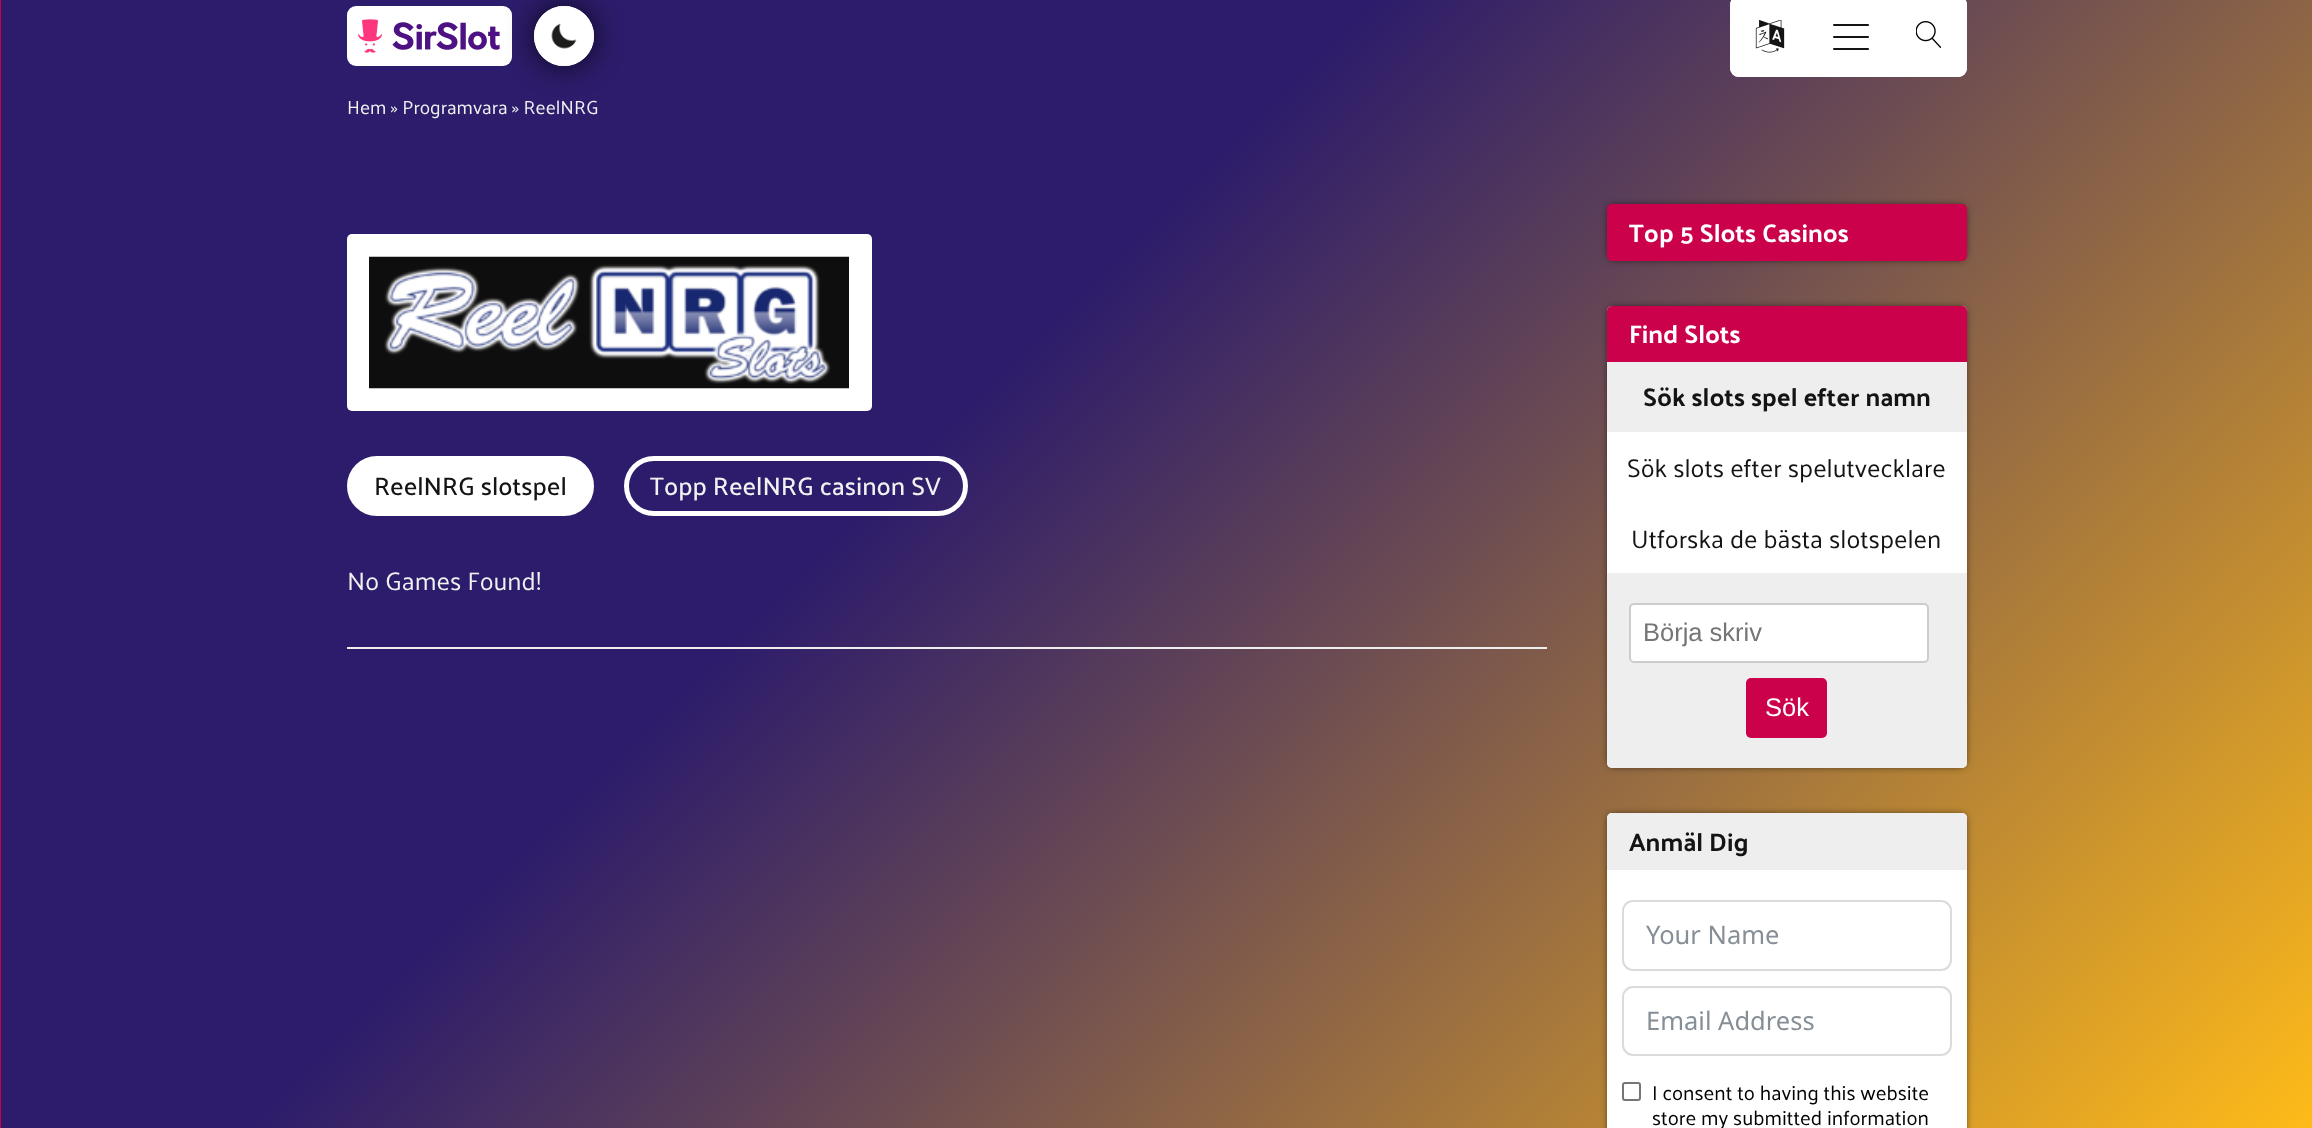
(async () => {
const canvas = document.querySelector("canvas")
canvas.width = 2312
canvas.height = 1128
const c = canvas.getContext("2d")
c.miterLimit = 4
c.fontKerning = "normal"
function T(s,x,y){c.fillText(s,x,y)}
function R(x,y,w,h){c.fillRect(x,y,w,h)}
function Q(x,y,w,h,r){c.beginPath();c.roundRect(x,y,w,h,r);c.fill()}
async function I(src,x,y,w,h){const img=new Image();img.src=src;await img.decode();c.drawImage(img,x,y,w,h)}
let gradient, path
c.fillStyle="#fff"
R(0,0,2312,1128)
gradient = c.createLinearGradient(296,-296,2017,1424)
gradient.addColorStop(.4,"#2d1c6b")
gradient.addColorStop(1,"#ffbb19")
c.fillStyle = gradient
R(1,0,2311,1128)
c.fillStyle="#fff"
Q(1730,-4,237,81,9)
c.fillStyle="#cb024b"
R(0,0,1,1128)
c.fillStyle="#fff"
path = new Path2D("M1739-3h71v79h-71c-4.5 0-8-3.5-8-8v-63c0-4.5 3.5-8 8-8z")
c.fill(path)
c.strokeStyle="#fff"
c.lineWidth=2
c.stroke(path)
await I("1.png",1755,20,30,33)
c.fillStyle="#141414"
Q(1833,36,36,2,1)
Q(1833,24,36,2,1)
Q(1833,48,36,2,1)
c.fillStyle="#fff"
path = new Path2D("M1892-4h66c5 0 9 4 9 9v63c0 5-4 9-9 9h-66z")
c.fill(path)
await I("2.png",1916,21,26,27)
Q(347,6,165,60,9)
await I("3.png",358,19,142,34)
c.fillStyle="#000"
c.filter="blur(15px)"
c.beginPath()
c.roundRect(537,9,54,54,27)
c.fill()
c.filter="none"
c.fillStyle="#fff"
c.beginPath()
c.arc(564,36,30,0,7)
c.fill()
await I("4.png",551,23,26,26)
c.beginPath()
c.arc(564,36,29,0,7)
c.stroke()
c.font="19.1px Palanquin"
c.fillStyle="#f1f1f1"
T("Hem » Programvara » ReelNRG",347,114)
c.fillStyle="#eee"
R(347,647,1200,2)
c.fillStyle="#fff"
Q(347,234,525,177,5)
await I("5.png",369,256,480,133)
c.beginPath()
c.roundRect(349.5,458.5,242,55,27.5)
c.fill()
c.lineWidth=5
c.stroke()
c.font="500 25.5px Palanquin"
c.fillStyle="#141414"
T("ReelNRG slotspel",374,495)
c.beginPath()
c.roundRect(626.5,458.5,339,55,27.5)
c.stroke()
c.fillStyle="#f1f1f1"
T("Topp ReelNRG casinon SV",650,495)
c.font="25.5px Palanquin"
T("No Games Found!",347,590)
c.fillStyle="#010101"
c.filter="blur(4px)"
c.beginPath()
c.roundRect(1610,207,354,51,1.5)
c.fill()
c.filter="none"
c.fillStyle="#cb024b"
Q(1607,204,360,57,5)
c.font="bold 25.5px Palanquin"
c.fillStyle="#fff"
T("Top 5 Slots Casinos",1629,242)
c.fillStyle="#010101"
c.filter="blur(4px)"
c.beginPath()
c.roundRect(1610,309,354,456,1.5)
c.fill()
c.filter="none"
c.fillStyle="#fff"
Q(1607,306,360,462,5)
c.fillStyle="#cb024b"
c.beginPath()
c.roundRect(1607,306,360,56,[5,5,0,0])
c.fill()
c.fillStyle="#fff"
T("Find Slots",1629,343)
c.fillStyle="#eee"
R(1607,362,360,70)
c.fillStyle="#141414"
T("Sök slots spel efter namn",1643,406)
c.font="25.5px Palanquin"
T("Sök slots efter spelutvecklare",1627,477)
T("Utforska de bästa slotspelen",1631,548)
c.fillStyle="#eee"
c.beginPath()
c.roundRect(1607,573,360,195,[0,0,5,5])
c.fill()
c.fillStyle="#fff"
c.beginPath()
c.roundRect(1630,604,298,58,4)
c.fill()
c.strokeStyle="#ccc"
c.lineWidth=2
c.stroke()
c.font="25.5px Liberation Sans"
c.fillStyle="#757575"
T("Börja skriv",1643,641)
c.fillStyle="#cb024b"
Q(1746,678,81,60,5)
c.fillStyle="#fff"
T("Sök",1765,716)
c.fillStyle="#010101"
c.filter="blur(4px)"
c.beginPath()
c.roundRect(1610,816,354,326,1.5)
c.fill()
c.filter="none"
c.fillStyle="#fff"
Q(1607,813,360,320,5)
c.fillStyle="#eee"
c.beginPath()
c.roundRect(1607,813,360,57,[5,5,0,0])
c.fill()
c.font="bold 25.5px Palanquin"
c.fillStyle="#141414"
T("Anmäl Dig",1629,851)
c.beginPath()
c.roundRect(1623,901,328,69,10)
c.strokeStyle="#dadbdd"
c.stroke()
c.font="25.5px Noto Sans"
c.fillStyle="#868e96"
T("Your Name",1646,944)
c.beginPath()
c.roundRect(1623,987,328,68,10)
c.stroke()
T("Email Address",1646,1030)
c.beginPath()
c.roundRect(1623,1083,17,17,2)
c.strokeStyle="#767676"
c.stroke()
c.font="20.4px Palanquin"
c.fillStyle="#010101"
T("I consent to having this website",1652,1100)
T("store my submitted information",1652,1125)
})()
